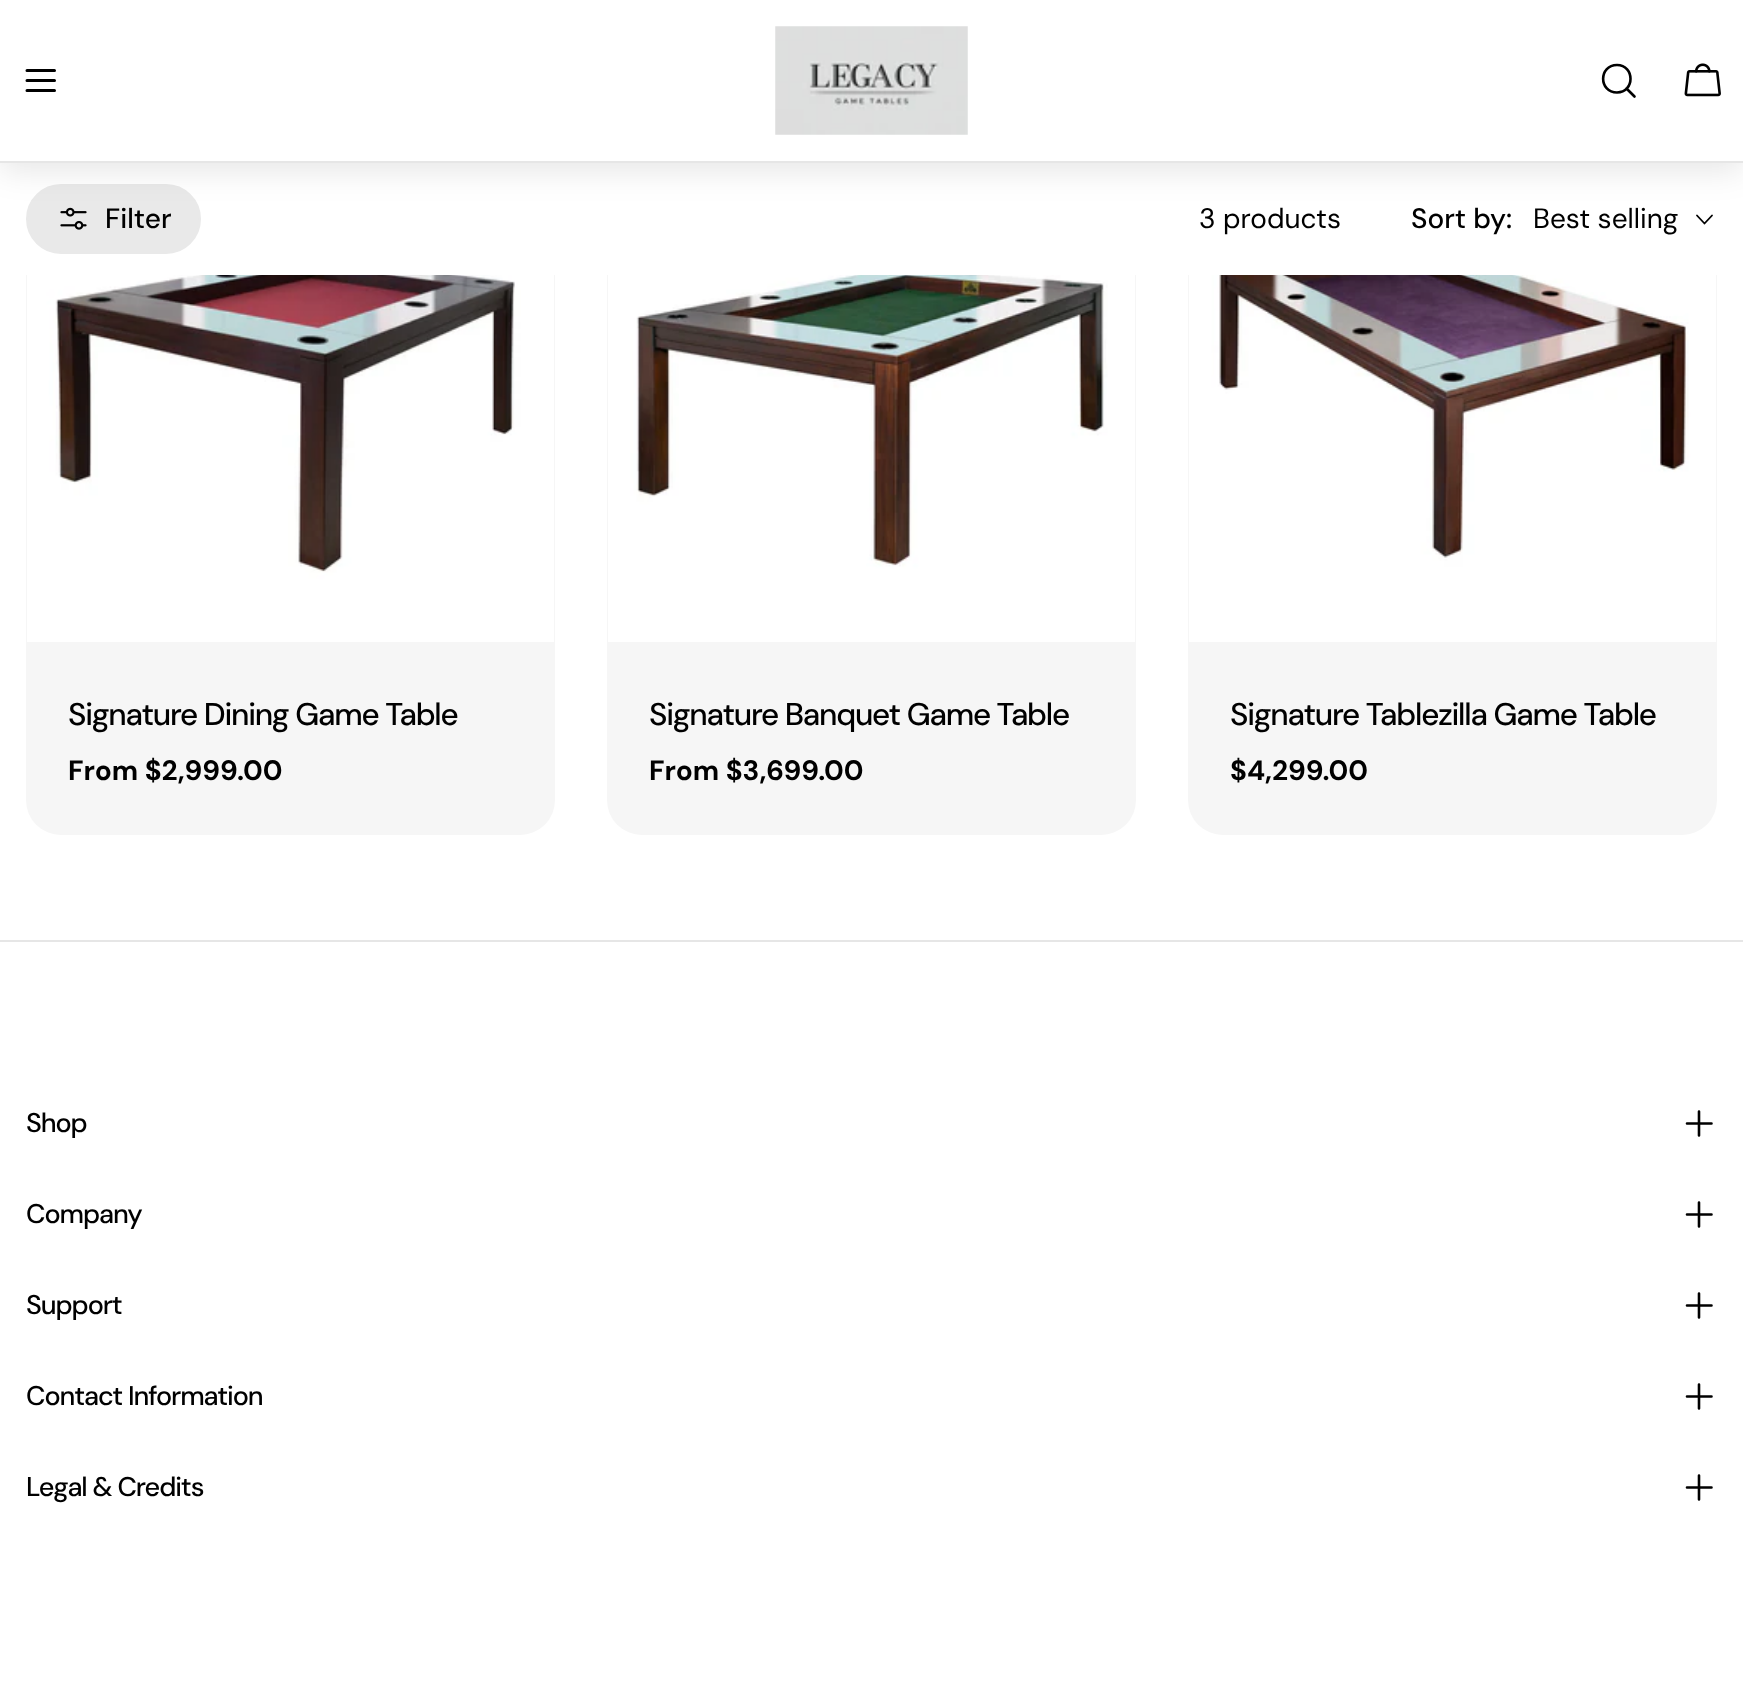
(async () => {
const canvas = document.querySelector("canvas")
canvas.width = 1743
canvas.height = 1690
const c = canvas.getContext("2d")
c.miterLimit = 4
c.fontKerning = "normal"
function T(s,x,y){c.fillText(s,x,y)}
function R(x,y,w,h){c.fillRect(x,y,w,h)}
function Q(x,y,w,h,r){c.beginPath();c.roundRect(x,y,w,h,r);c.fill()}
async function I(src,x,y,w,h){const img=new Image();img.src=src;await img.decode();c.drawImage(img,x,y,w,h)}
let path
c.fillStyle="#fff"
R(0,0,1743,1690)
c.fillStyle="#f6f6f6"
Q(26,114,529,721,35)
Q(607,114,529,721,35)
Q(1188,114,529,721,35)
c.fillStyle="#fff"
R(26,163,1691,112)
c.fillStyle="#e9e9e9"
c.beginPath()
c.roundRect(27,185,173,68,34)
c.fill()
c.strokeStyle="#e9e9e9"
c.lineWidth=2
c.stroke()
await I("3.png",60,207,27,23)
path = new Path2D("M1712 215.5l-7.5 8l-7.5-8")
c.strokeStyle="#000"
c.lineWidth=1.8
c.lineCap="round"
c.lineJoin="round"
c.stroke(path)
c.fillStyle="#0000001a"
c.filter="blur(16px)"
c.beginPath()
c.rect(0,7,1743,163)
c.fill()
c.filter="none"
c.fillStyle="#e6e6e6"
R(0,161,1743,2)
c.fillStyle="#fff"
R(0,0,1743,161)
path = new Path2D("M27 80.5h27.5m-27.5-10h27.5m-27.5 20h27.5")
c.lineWidth=3
c.stroke(path)
await I("1.png",775,26,193,109)
path = new Path2D("M1617 92.5c18 0 18-27.5 0-27.5c-18.5 0-18.5 27.5 0 27.5zm9.5-4l8 8")
c.lineWidth=2.6
c.stroke(path)
await I("2.png",1684,63,37,34)
c.font="500 28px 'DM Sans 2'"
c.fillStyle="#000"
T("Filter",105,228)
c.font="28px DM Sans"
T("3 products",1199,228)
c.font="500 28px 'DM Sans 2'"
T("Sort by:",1411,228)
c.font="28px DM Sans"
T("Best selling",1533,228)
await I("4.png",27,275,527,367)
c.letterSpacing="-1.25px"
c.font="500 31.4px DM Sans"
T("Signature Dining Game Table",68,725)
c.letterSpacing="0px"
c.font="bold 28px DM Sans"
T("From $2,999.00",68,780)
await I("5.png",608,275,527,367)
c.letterSpacing="-1.25px"
c.font="500 31.4px DM Sans"
T("Signature Banquet Game Table",649,725)
c.letterSpacing="0px"
c.font="bold 28px DM Sans"
T("From $3,699.00",649,780)
await I("6.png",1189,275,527,367)
c.letterSpacing="-1.25px"
c.font="500 31.4px DM Sans"
T("Signature Tablezilla Game Table",1230,725)
c.letterSpacing="0px"
c.font="bold 28px DM Sans"
T("$4,299.00",1230,780)
c.fillStyle="#e6e6e6"
R(0,940,1743,2)
c.letterSpacing="-1.1px"
c.font="500 27px 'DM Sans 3'"
c.fillStyle="#000"
T("Shop",26,1132)
path = new Path2D("M1687 1123.5h24.5m-12.5-12v24")
c.stroke(path)
T("Company",26,1223)
path = new Path2D("M1687 1214.5h24.5m-12.5-12v24")
c.stroke(path)
T("Support",26,1314)
path = new Path2D("M1687 1305.5h24.5m-12.5-12v24")
c.stroke(path)
T("Contact Information",26,1405)
path = new Path2D("M1687 1396.5h24.5m-12.5-12v24")
c.stroke(path)
T("Legal & Credits",26,1496)
path = new Path2D("M1687 1487.5h24.5m-12.5-12v24")
c.stroke(path)
})()
